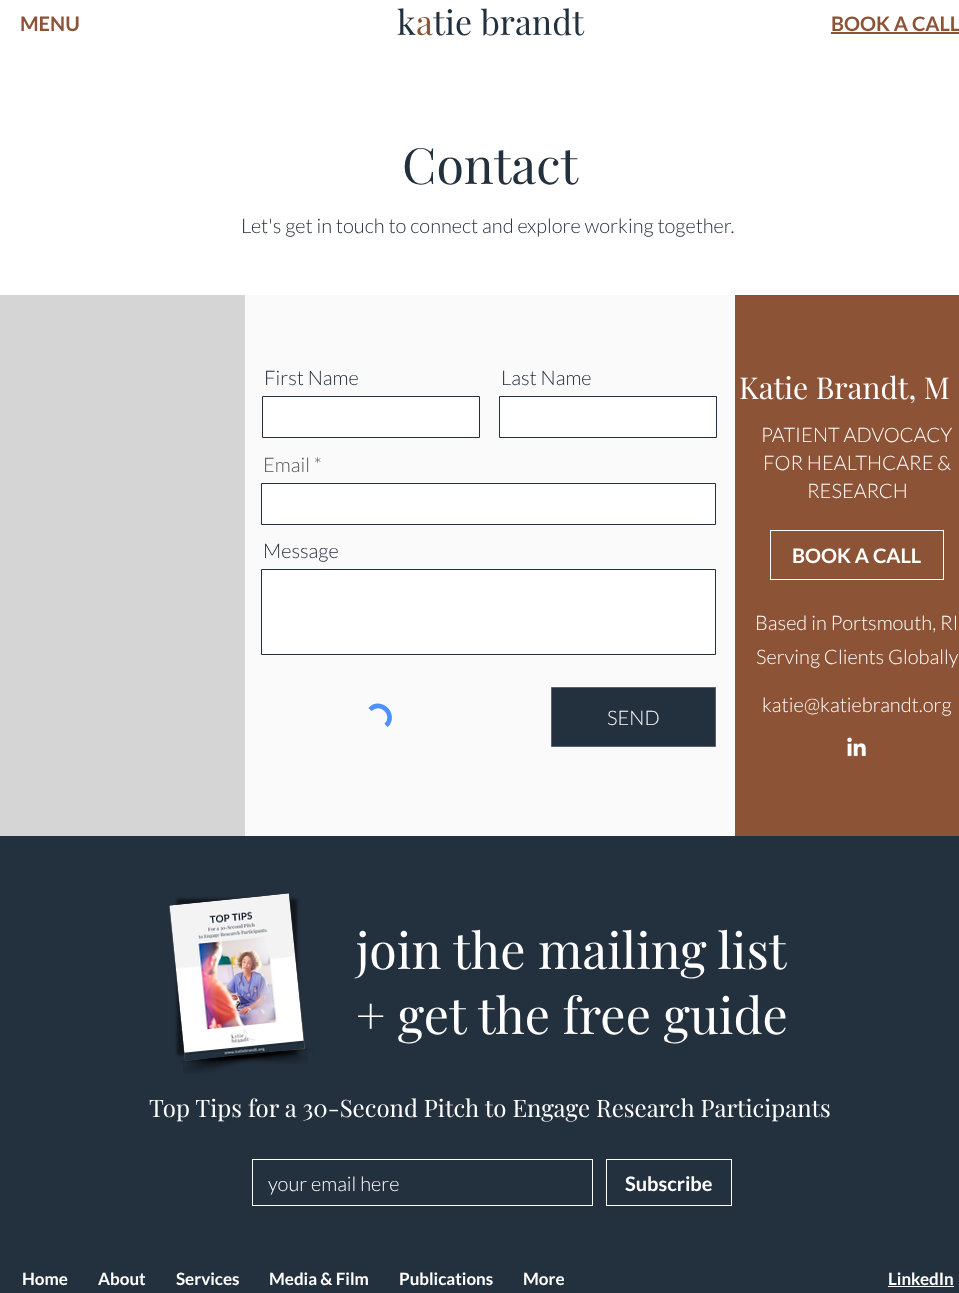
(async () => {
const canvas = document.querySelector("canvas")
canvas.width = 959
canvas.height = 1293
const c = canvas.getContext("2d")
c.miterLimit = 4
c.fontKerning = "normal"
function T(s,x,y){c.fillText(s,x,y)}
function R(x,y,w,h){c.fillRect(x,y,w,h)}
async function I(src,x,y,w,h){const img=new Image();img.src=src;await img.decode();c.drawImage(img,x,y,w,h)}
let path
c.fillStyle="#fff"
R(0,0,959,1293)
c.font="bold 20px Lato"
c.fillStyle="#8d5336"
T("MENU",20,31)
c.font="34px Playfair Display"
c.fillStyle="#23303d"
T("k",397,35)
c.fillStyle="#8d5336"
T("a",416,35)
c.fillStyle="#23303d"
T("tie brandt",433,35)
c.font="bold 20px Lato"
c.fillStyle="#8d5336"
T("BOOK A CALL",831,31)
R(831,32,128,2)
c.font="50px Playfair Display"
c.fillStyle="#23303d"
T("Contact",402,184)
c.font="300 20px Lato"
T("Let's get in touch to connect and explore working together.",241,233)
c.fillStyle="#d5d5d5"
R(0,295,245,541)
c.fillStyle="#fafafa"
R(245,295,490,541)
c.fillStyle="#23303d"
T("First Name",264,385)
c.fillStyle="#fff"
c.beginPath()
c.rect(262.5,396.5,217,41)
c.fill()
c.strokeStyle="#23303d"
c.stroke()
c.fillStyle="#23303d"
T("Last Name",501,385)
c.fillStyle="#fff"
c.beginPath()
c.rect(499.5,396.5,217,41)
c.fill()
c.stroke()
c.fillStyle="#555"
T("Email *",263,472)
c.fillStyle="#fff"
c.beginPath()
c.rect(261.5,483.5,454,41)
c.fill()
c.stroke()
c.fillStyle="#23303d"
T("Message",263,558)
c.fillStyle="#fff"
c.beginPath()
c.rect(261.5,569.5,454,85)
c.fill()
c.stroke()
path = new Path2D("M370 709.5c10.5-11 27 5.5 16 16")
c.strokeStyle="#4d90fe"
c.lineWidth=4.6
c.stroke(path)
c.fillStyle="#23303d"
c.beginPath()
c.rect(551.5,687.5,164,59)
c.fill()
c.strokeStyle="#56626e"
c.lineWidth=1
c.stroke()
c.fillStyle="#fff"
T("SEND",607,725)
c.fillStyle="#8d5336"
R(735,295,224,541)
c.font="30px Playfair Display"
c.fillStyle="#fff"
T("Katie Brandt, M",739,399)
c.font="300 20px Lato"
T("PATIENT ADVOCACY",761,442)
T("FOR HEALTHCARE &",763,470)
T("RESEARCH",807,498)
c.strokeStyle="#fff"
c.strokeRect(770.5,530.5,173,49)
c.font="bold 20px Lato"
T("BOOK A CALL",792,563)
c.font="300 20px Lato"
T("Based in Portsmouth, RI",755,630)
T("Serving Clients Globally",756,664)
T("katie@katiebrandt.org",762,712)
await I("1.png",847,737,19,20)
c.fillStyle="#23303d"
R(0,836,959,457)
c.fillStyle="#00000080"
c.filter="blur(1.5px)"
c.beginPath()
c.rect(177,899,120,156)
c.fill()
c.filter="none"
c.fillStyle="#555"
path = new Path2D("M169 906l120-12l16 155l-120 12z")
c.fill(path)
await I("2.png",169,893,136,168)
await I("3.png",183,1048,130,26)
await I("4.png",180,1049,128,15)
c.font="50px Playfair Display"
c.fillStyle="#fff"
T("join the mailing list",356,969)
T("+ get the free guide",356,1034)
c.font="24px Playfair Display"
T("Top Tips for a 30-Second Pitch to Engage Research Participants",149,1117)
c.strokeRect(252.5,1159.5,340,46)
c.font="300 20px Lato"
T("your email here",268,1191)
c.strokeRect(606.5,1159.5,125,46)
c.font="bold 20px Lato"
T("Subscribe",625,1191)
c.font="bold 17px Lato"
T("Home",22,1285)
T("About",98,1285)
T("Services",176,1285)
T("Media & Film",269,1285)
T("Publications",399,1285)
T("More",523,1285)
T("LinkedIn",888,1285)
R(888,1286,66,1)
})()
